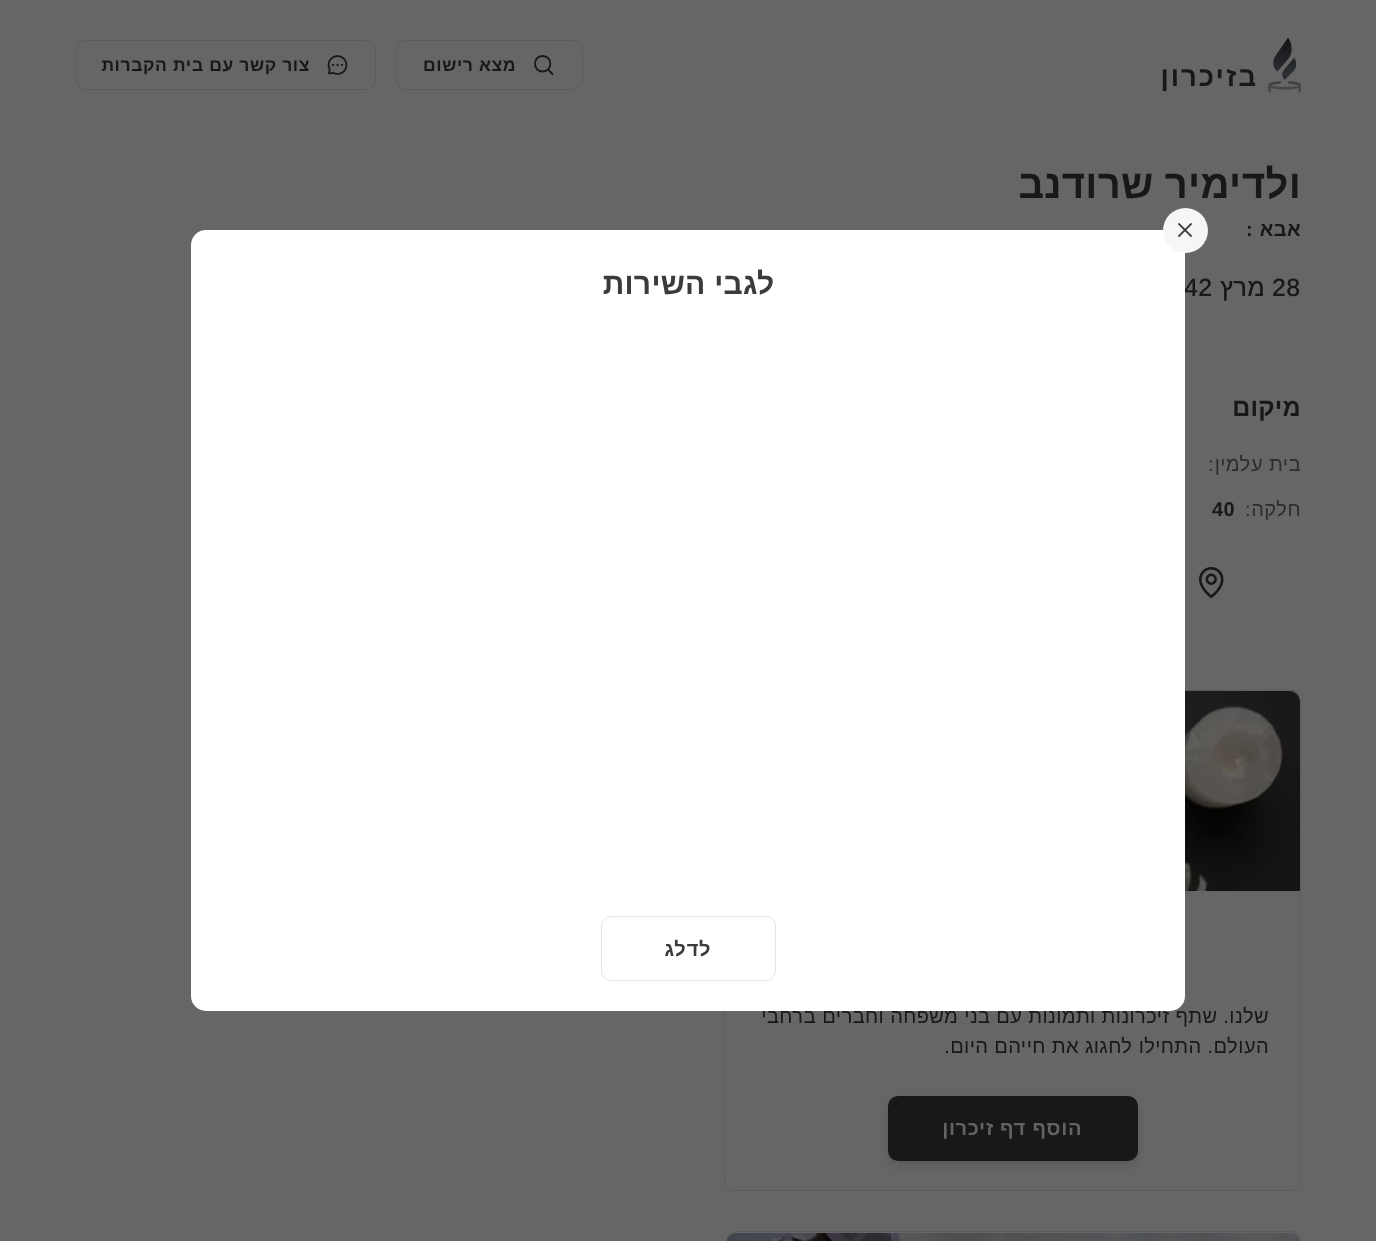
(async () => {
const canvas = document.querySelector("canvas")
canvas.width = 1376
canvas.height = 1241
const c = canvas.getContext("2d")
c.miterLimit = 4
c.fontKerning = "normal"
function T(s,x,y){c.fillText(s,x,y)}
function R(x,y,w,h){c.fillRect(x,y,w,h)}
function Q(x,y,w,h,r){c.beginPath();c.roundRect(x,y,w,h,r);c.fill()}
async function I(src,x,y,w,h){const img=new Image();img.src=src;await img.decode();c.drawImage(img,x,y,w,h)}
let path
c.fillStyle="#666"
R(0,0,1376,1241)
await I("1.png",1268,38,33,55)
c.letterSpacing="2px"
c.direction="rtl"
c.font="bold 27.5px Arimo"
c.fillStyle="#181818"
T("בזיכרון",1258,86)
c.beginPath()
c.roundRect(396.5,40.5,186,49,9.5)
c.strokeStyle="#5c5c5c"
c.stroke()
path = new Path2D("M542.5 71.5c10.5 0 10.5-15.5 0-15.5c-10 0-10 15.5 0 15.5m5.5-2l4.5 4.5")
c.strokeStyle="#181818"
c.lineWidth=1.8
c.lineCap="round"
c.lineJoin="round"
c.stroke(path)
c.letterSpacing="0.6px"
c.font="bold 17.5px Arimo"
T("מצא רישום",516,71)
c.beginPath()
c.roundRect(76.5,40.5,299,49,9.5)
c.strokeStyle="#5c5c5c"
c.lineWidth=1
c.lineJoin="miter"
c.stroke()
await I("2.png",327,55,21,20)
T("צור קשר עם בית הקברות",310,71)
c.letterSpacing="0.25px"
c.font="bold 40px Arimo"
T("ולדימיר שרודנב",1301,198)
c.letterSpacing="0.38px"
c.font="bold 20px Arimo"
T("אבא",1301,236)
c.direction="ltr"
T(":",1246,236)
c.letterSpacing="0.25px"
c.font="500 25px Arimo"
T("28",1272,296)
c.direction="rtl"
T("מרץ",1265,296)
c.direction="ltr"
T("42",1184,296)
c.direction="rtl"
c.font="bold 25px Arimo"
T("מיקום",1301,416)
c.letterSpacing="0.38px"
c.font="20px Arimo"
c.fillStyle="#2d2d2d"
T("בית עלמין",1301,471)
c.direction="ltr"
T(":",1208,471)
c.direction="rtl"
T("חלקה",1301,516)
c.direction="ltr"
T(":",1245,516)
c.font="bold 20px Arimo"
c.fillStyle="#181818"
T("40",1212,516)
await I("3.png",1199,567,25,31)
c.beginPath()
c.roundRect(724.5,690.5,576,500,9.5)
c.stroke()
await I("4.png",1185,691,115,200)
c.direction="rtl"
c.font="20px Arimo"
T("שלנו. שתף זיכרונות ותמונות עם בני משפחה וחברים ברחבי",1269,1023)
T("העולם. התחילו לחגוג את חייהם היום.",1269,1053)
c.fillStyle="#0000001f"
c.filter="blur(5px)"
c.beginPath()
c.roundRect(888,1100,250,65,10)
c.fill()
c.filter="none"
c.fillStyle="#181818"
Q(888,1096,250,65,10)
c.letterSpacing="0.6px"
c.font="bold 20px Arimo"
c.fillStyle="#636363"
T("הוסף דף זיכרון",1082,1135)
c.beginPath()
c.roundRect(726.5,1231.5,574,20,9.5)
c.stroke()
await I("5.png",727,1233,573,8)
c.fillStyle="#fff"
Q(191,230,994,781,15)
c.fillStyle="#f6f6f6"
c.beginPath()
c.arc(1185.5,230.5,22.5,0,7)
c.fill()
await I("6.png",1178,223,15,15)
c.letterSpacing="0.25px"
c.font="bold 30px Arimo"
c.fillStyle="#3b3b3b"
T("לגבי השירות",775,294)
c.beginPath()
c.roundRect(601.5,916.5,174,64,9.5)
c.strokeStyle="#e5e5e5"
c.stroke()
c.letterSpacing="0.6px"
c.font="bold 20px Arimo"
T("לדלג",711,956)
})()
